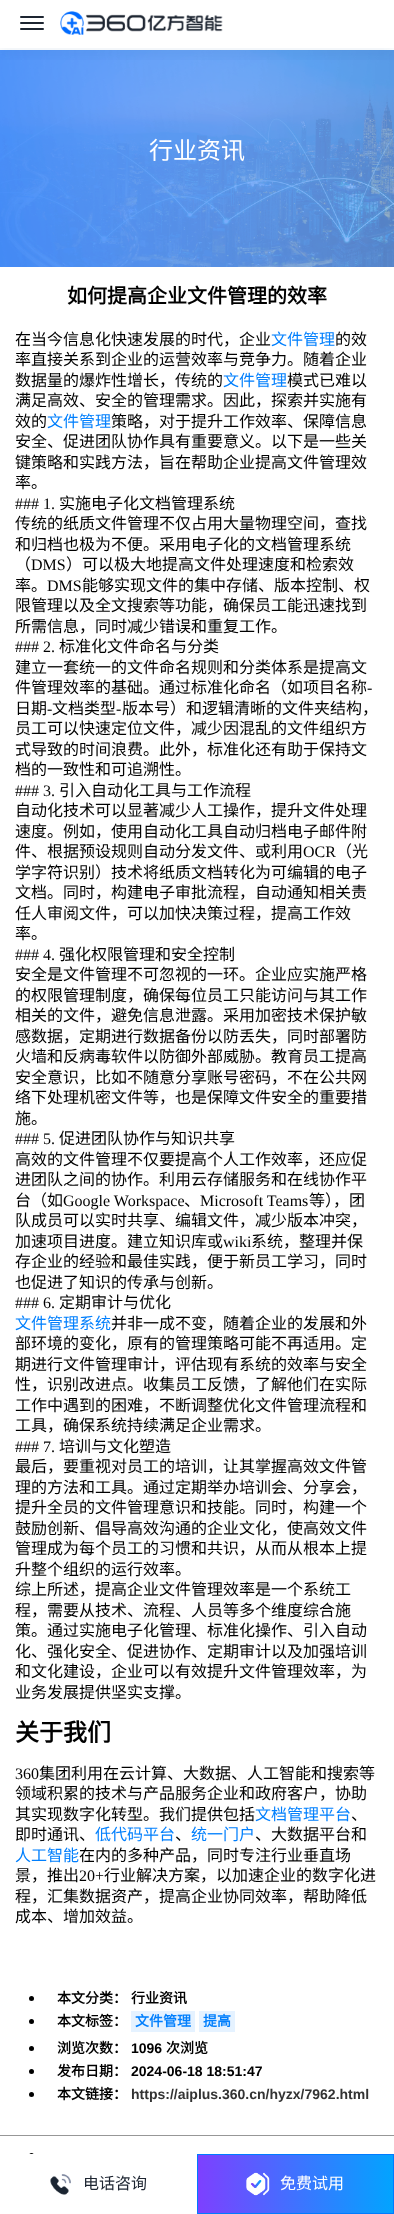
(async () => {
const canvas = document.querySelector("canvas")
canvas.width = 394
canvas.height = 2214
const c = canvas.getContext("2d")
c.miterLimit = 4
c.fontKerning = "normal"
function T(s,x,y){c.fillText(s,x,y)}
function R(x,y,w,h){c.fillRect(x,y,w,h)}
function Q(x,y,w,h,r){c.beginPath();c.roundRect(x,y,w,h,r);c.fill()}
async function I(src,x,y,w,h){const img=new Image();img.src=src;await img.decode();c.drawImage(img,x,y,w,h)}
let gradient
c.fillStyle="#fff"
R(0,0,394,2214)
await I("2.png",0,50,394,217)
c.save()
c.beginPath()
c.rect(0,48,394,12)
c.clip()
c.fillStyle="#0138770d"
c.filter="blur(6px)"
c.beginPath()
c.rect(0,10,394,48)
c.fill()
c.filter="none"
c.restore()
c.fillStyle="#1d2531"
Q(20,16,24,2,1)
Q(20,22,24,2,1)
Q(20,28,24,2,1)
await I("1.png",60,11,163,24)
c.font="24px Noto Sans CJK SC"
c.fillStyle="#fff"
T("行业资讯",149,159)
c.font="bold 20px Noto Sans CJK SC"
c.fillStyle="#000"
T("如何提高企业文件管理的效率",67,303)
c.font="16px Noto Sans CJK SC"
T("在当今信息化快速发展的时代，企业",15,345)
c.fillStyle="#017ffd"
T("文件管理",271,345)
c.fillStyle="#000"
T("的效",335,345)
T("率直接关系到企业的运营效率与竞争力。随着企业",15,365)
T("数据量的爆炸性增长，传统的",15,386)
c.fillStyle="#017ffd"
T("文件管理",223,386)
c.fillStyle="#000"
T("模式已难以",287,386)
T("满足高效、安全的管理需求。因此，探索并实施有",15,406)
T("效的",15,427)
c.fillStyle="#017ffd"
T("文件管理",47,427)
c.fillStyle="#000"
T("策略，对于提升工作效率、保障信息",111,427)
T("安全、促进团队协作具有重要意义。以下是一些关",15,447)
T("键策略和实践方法，旨在帮助企业提高文件管理效",15,468)
T("率。",15,488)
c.font="16px Liberation Serif"
T("### 1.",15,509)
c.font="16px Noto Sans CJK SC"
T("实施电子化文档管理系统",59,509)
T("传统的纸质文件管理不仅占用大量物理空间，查找",15,529)
T("和归档也极为不便。采用电子化的文档管理系统",15,550)
T("（",15,570)
c.font="16px Liberation Serif"
T("DMS",31,570)
c.font="16px Noto Sans CJK SC"
T("）可以极大地提高文件处理速度和检索效",66,570)
T("率。",15,591)
c.font="16px Liberation Serif"
T("DMS",47,591)
c.font="16px Noto Sans CJK SC"
T("能够实现文件的集中存储、版本控制、权",82,591)
T("限管理以及全文搜索等功能，确保员工能迅速找到",15,611)
T("所需信息，同时减少错误和重复工作。",15,632)
c.font="16px Liberation Serif"
T("### 2.",15,652)
c.font="16px Noto Sans CJK SC"
T("标准化文件命名与分类",59,652)
T("建立一套统一的文件命名规则和分类体系是提高文",15,673)
T("件管理效率的基础。通过标准化命名（如项目名称",15,693)
c.font="16px Liberation Serif"
T("-",367,693)
c.font="16px Noto Sans CJK SC"
T("日期",15,714)
c.font="16px Liberation Serif"
T("-",47,714)
c.font="16px Noto Sans CJK SC"
T("文档类型",52,714)
c.font="16px Liberation Serif"
T("-",116,714)
c.font="16px Noto Sans CJK SC"
T("版本号）和逻辑清晰的文件夹结构，",122,714)
T("员工可以快速定位文件，减少因混乱的文件组织方",15,734)
T("式导致的时间浪费。此外，标准化还有助于保持文",15,755)
T("档的一致性和可追溯性。",15,775)
c.font="16px Liberation Serif"
T("### 3.",15,796)
c.font="16px Noto Sans CJK SC"
T("引入自动化工具与工作流程",59,796)
T("自动化技术可以显著减少人工操作，提升文件处理",15,816)
T("速度。例如，使用自动化工具自动归档电子邮件附",15,837)
T("件、根据预设规则自动分发文件、或利用",15,857)
c.font="16px Liberation Serif"
T("OCR",303,857)
c.font="16px Noto Sans CJK SC"
T("（光",336,857)
T("学字符识别）技术将纸质文档转化为可编辑的电子",15,878)
T("文档。同时，构建电子审批流程，自动通知相关责",15,898)
T("任人审阅文件，可以加快决策过程，提高工作效",15,919)
T("率。",15,939)
c.font="16px Liberation Serif"
T("### 4.",15,960)
c.font="16px Noto Sans CJK SC"
T("强化权限管理和安全控制",59,960)
T("安全是文件管理不可忽视的一环。企业应实施严格",15,980)
T("的权限管理制度，确保每位员工只能访问与其工作",15,1001)
T("相关的文件，避免信息泄露。采用加密技术保护敏",15,1021)
T("感数据，定期进行数据备份以防丢失，同时部署防",15,1042)
T("火墙和反病毒软件以防御外部威胁。教育员工提高",15,1062)
T("安全意识，比如不随意分享账号密码，不在公共网",15,1083)
T("络下处理机密文件等，也是保障文件安全的重要措",15,1103)
T("施。",15,1124)
c.font="16px Liberation Serif"
T("### 5.",15,1144)
c.font="16px Noto Sans CJK SC"
T("促进团队协作与知识共享",59,1144)
T("高效的文件管理不仅要提高个人工作效率，还应促",15,1165)
T("进团队之间的协作。利用云存储服务和在线协作平",15,1185)
T("台（如",15,1206)
c.font="16px Liberation Serif"
T("Google Workspace",63,1206)
c.font="16px Noto Sans CJK SC"
T("、",184,1206)
c.font="16px Liberation Serif"
T("Microsoft Teams",200,1206)
c.font="16px Noto Sans CJK SC"
T("等），团",309,1206)
T("队成员可以实时共享、编辑文件，减少版本冲突，",15,1226)
T("加速项目进度。建立知识库或",15,1247)
c.font="16px Liberation Serif"
T("wiki",223,1247)
c.font="16px Noto Sans CJK SC"
T("系统，整理并保",251,1247)
T("存企业的经验和最佳实践，便于新员工学习，同时",15,1267)
T("也促进了知识的传承与创新。",15,1288)
c.font="16px Liberation Serif"
T("### 6.",15,1308)
c.font="16px Noto Sans CJK SC"
T("定期审计与优化",59,1308)
c.fillStyle="#017ffd"
T("文件管理系统",15,1329)
c.fillStyle="#000"
T("并非一成不变，随着企业的发展和外",111,1329)
T("部环境的变化，原有的管理策略可能不再适用。定",15,1349)
T("期进行文件管理审计，评估现有系统的效率与安全",15,1370)
T("性，识别改进点。收集员工反馈，了解他们在实际",15,1390)
T("工作中遇到的困难，不断调整优化文件管理流程和",15,1411)
T("工具，确保系统持续满足企业需求。",15,1431)
c.font="16px Liberation Serif"
T("### 7.",15,1452)
c.font="16px Noto Sans CJK SC"
T("培训与文化塑造",59,1452)
T("最后，要重视对员工的培训，让其掌握高效文件管",15,1472)
T("理的方法和工具。通过定期举办培训会、分享会，",15,1493)
T("提升全员的文件管理意识和技能。同时，构建一个",15,1513)
T("鼓励创新、倡导高效沟通的企业文化，使高效文件",15,1534)
T("管理成为每个员工的习惯和共识，从而从根本上提",15,1554)
T("升整个组织的运行效率。",15,1575)
T("综上所述，提高企业文件管理效率是一个系统工",15,1595)
T("程，需要从技术、流程、人员等多个维度综合施",15,1616)
T("策。通过实施电子化管理、标准化操作、引入自动",15,1636)
T("化、强化安全、促进协作、定期审计以及加强培训",15,1657)
T("和文化建设，企业可以有效提升文件管理效率，为",15,1677)
T("业务发展提供坚实支撑。",15,1698)
c.font="bold 24px Noto Sans CJK SC"
T("关于我们",15,1741)
c.font="16px Liberation Serif"
T("360",15,1779)
c.font="16px Noto Sans CJK SC"
T("集团利用在云计算、大数据、人工智能和搜索等",39,1779)
T("领域积累的技术与产品服务企业和政府客户，协助",15,1799)
T("其实现数字化转型。我们提供包括",15,1820)
c.fillStyle="#017ffd"
T("文档管理平台",255,1820)
c.fillStyle="#000"
T("、",351,1820)
T("即时通讯、",15,1840)
c.fillStyle="#017ffd"
T("低代码平台",95,1840)
c.fillStyle="#000"
T("、",175,1840)
c.fillStyle="#017ffd"
T("统一门户",191,1840)
c.fillStyle="#000"
T("、大数据平台和",255,1840)
c.fillStyle="#017ffd"
T("人工智能",15,1861)
c.fillStyle="#000"
T("在内的多种产品，同时专注行业垂直场",79,1861)
T("景，推出",15,1881)
c.font="16px Liberation Serif"
T("20+",79,1881)
c.font="16px Noto Sans CJK SC"
T("行业解决方案，以加速企业的数字化进",104,1881)
T("程，汇集数据资产，提高企业协同效率，帮助降低",15,1902)
T("成本、增加效益。",15,1922)
c.beginPath()
c.arc(31.5,1998.5,2.5,0,7)
c.fill()
c.font="bold 14px Noto Sans CJK SC"
T("本文分类：",57,2003)
T("行业资讯",131,2003)
c.beginPath()
c.arc(31.5,2021.5,2.5,0,7)
c.fill()
T("本文标签：",57,2026)
c.fillStyle="#e5f2ff"
R(131,2011,64,21)
c.fillStyle="#017ffd"
T("文件管理",135,2026)
c.fillStyle="#e5f2ff"
R(199,2011,36,21)
c.fillStyle="#017ffd"
T("提高",203,2026)
c.fillStyle="#000"
c.beginPath()
c.arc(31.5,2048.5,2.5,0,7)
c.fill()
T("浏览次数：",57,2053)
c.font="bold 14px Liberation Sans"
T("1096",131,2053)
c.font="bold 14px Noto Sans CJK SC"
T("次浏览",166,2053)
c.beginPath()
c.arc(31.5,2071.5,2.5,0,7)
c.fill()
T("发布日期：",57,2076)
c.font="bold 14px Liberation Sans"
T("2024-06-18 18:51:47",131,2076)
c.beginPath()
c.arc(31.5,2094.5,2.5,0,7)
c.fill()
c.font="bold 14px Noto Sans CJK SC"
T("本文链接：",57,2099)
c.font="bold 14px Liberation Sans"
c.fillStyle="#333"
T("https://aiplus.360.cn/hyzx/7962.html",131,2099)
c.fillStyle="#979797"
R(0,2135,394,1)
c.fillStyle="#000"
c.beginPath()
c.arc(31.5,2155.5,2.5,0,7)
c.fill()
c.fillStyle="#fff"
R(29,2154,5,4)
await I("3.png",50,2174,21,21)
c.font="16px Noto Sans CJK SC"
c.fillStyle="#1d2531"
T("电话咨询",83,2189)
gradient = c.createLinearGradient(198,2184,393,2184)
gradient.addColorStop(0,"#7d40ff")
gradient.addColorStop(1,"#02a4ff")
c.fillStyle = gradient
R(198,2155,195,58)
c.strokeStyle="#007bff"
c.strokeRect(197.5,2154.5,196,59)
await I("4.png",246,2172,24,24)
c.fillStyle="#fff"
T("免费试用",280,2189)
})()
